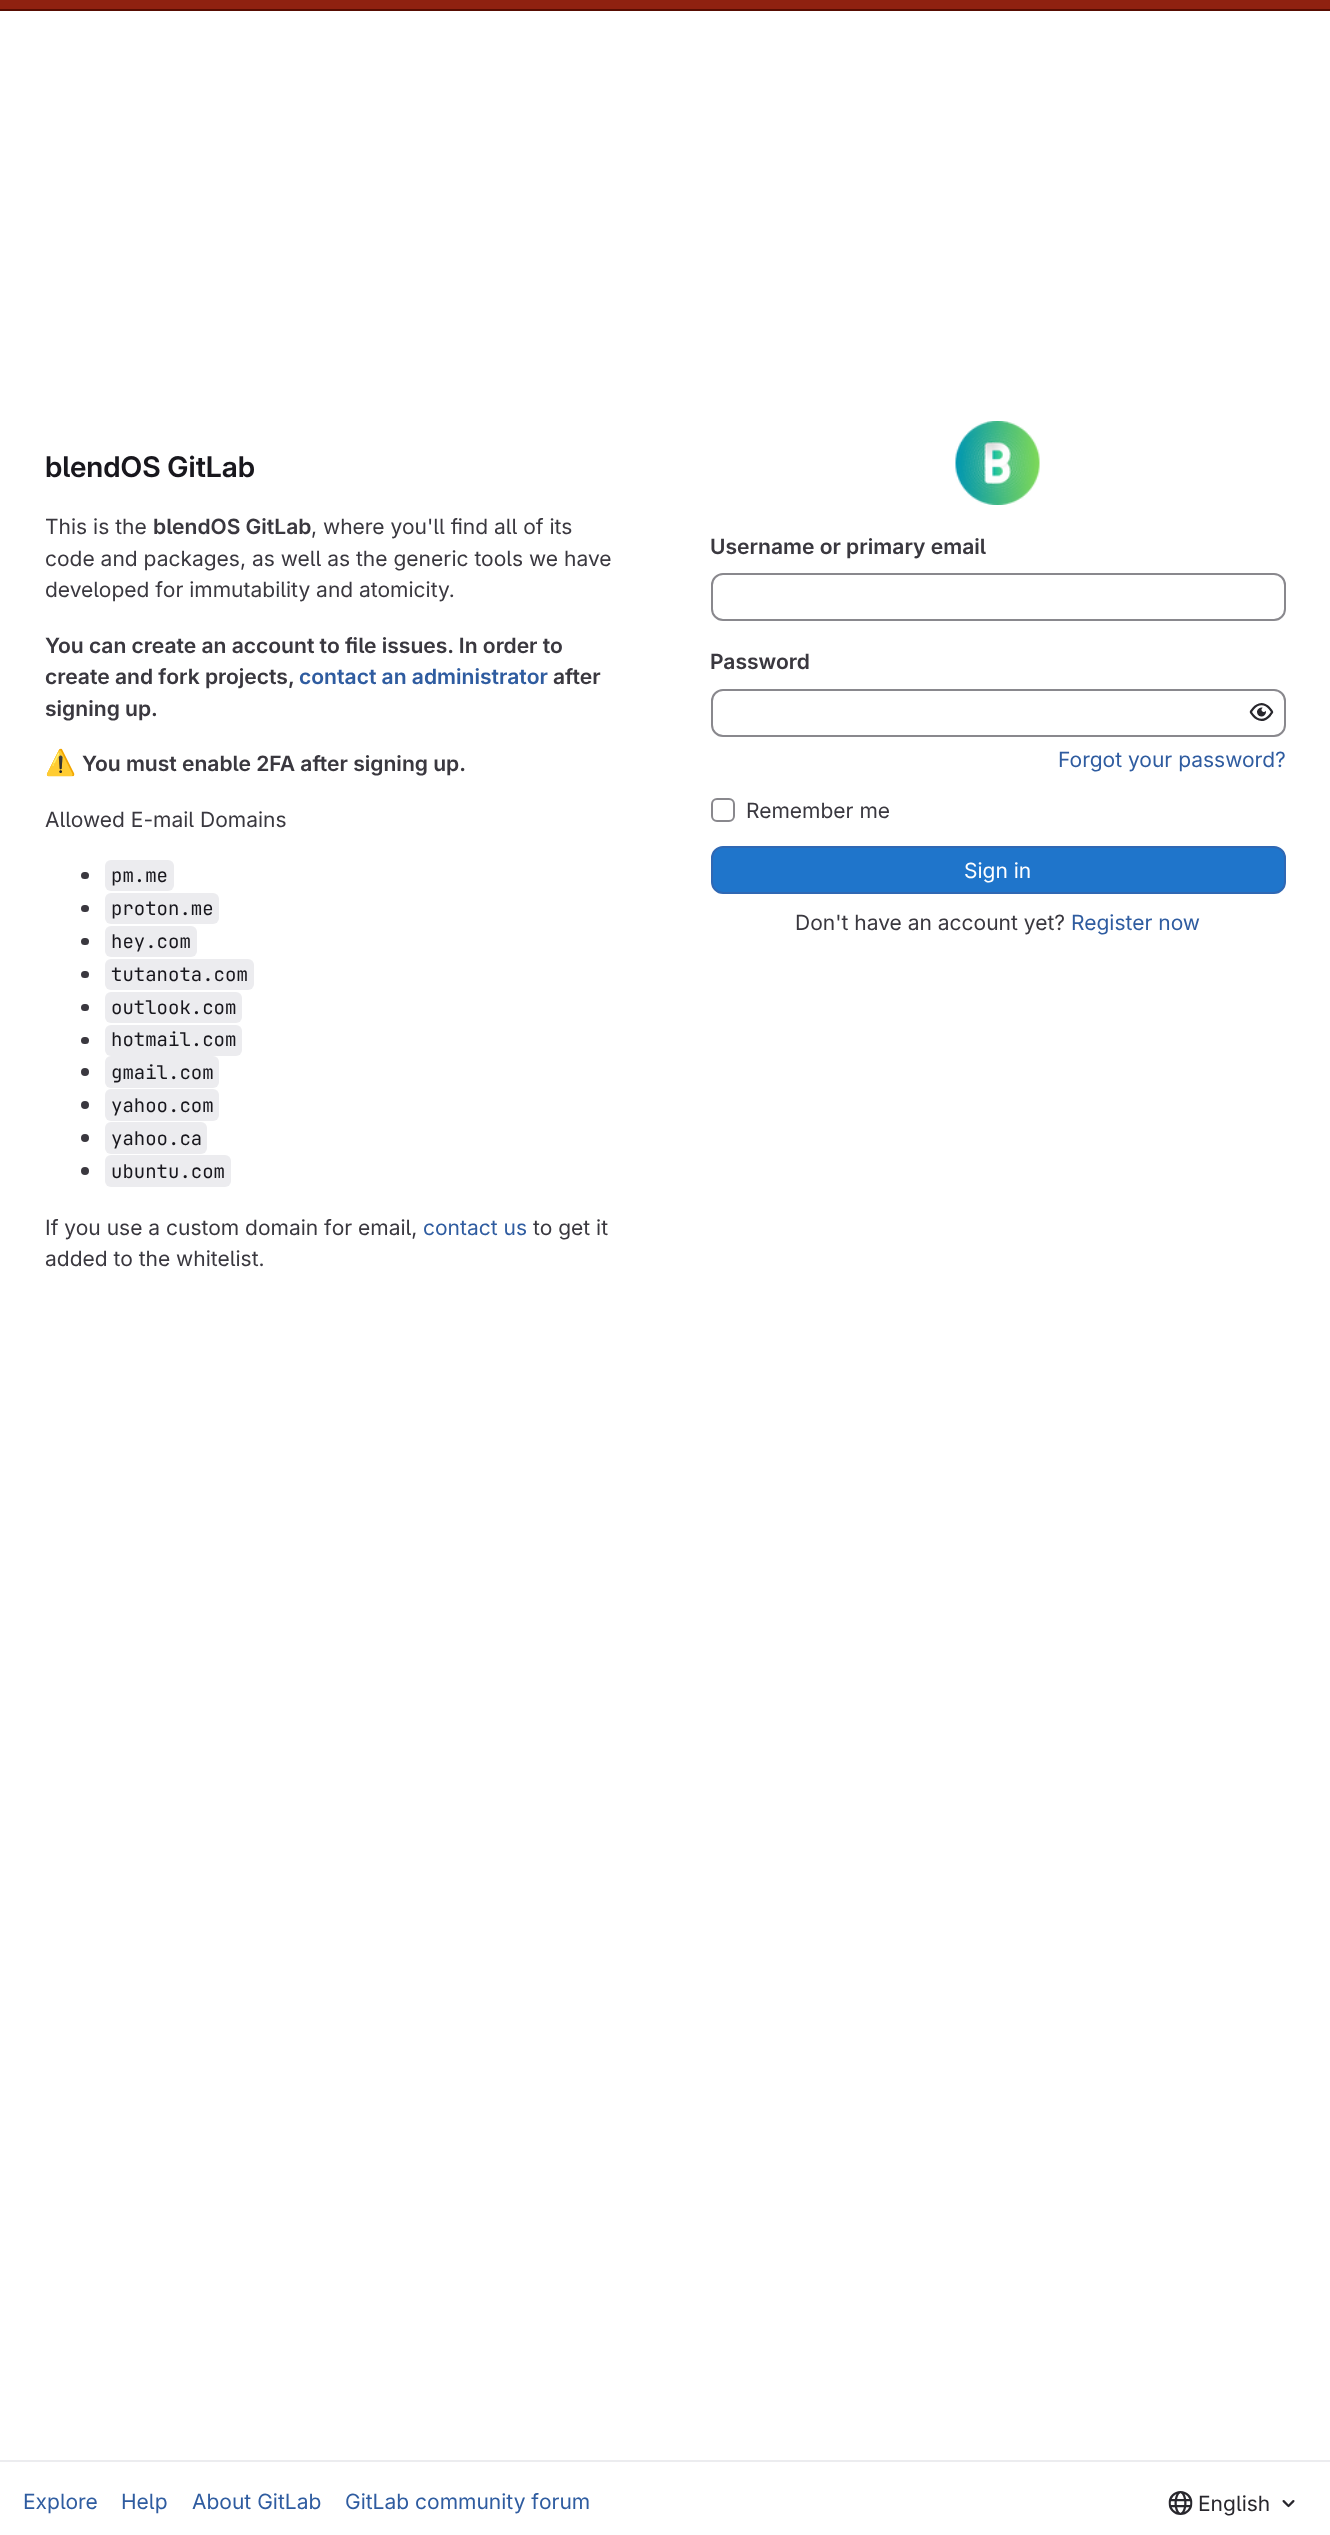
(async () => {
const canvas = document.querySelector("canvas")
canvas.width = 1330
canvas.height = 2535
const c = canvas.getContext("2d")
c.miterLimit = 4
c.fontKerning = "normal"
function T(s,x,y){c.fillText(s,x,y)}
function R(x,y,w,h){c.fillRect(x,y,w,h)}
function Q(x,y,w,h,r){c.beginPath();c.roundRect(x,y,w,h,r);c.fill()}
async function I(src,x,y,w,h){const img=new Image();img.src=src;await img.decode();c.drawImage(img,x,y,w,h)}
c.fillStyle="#fff"
R(0,0,1330,2535)
c.fillStyle="#8f2110"
R(0,0,1330,9)
c.fillStyle="#580d02"
R(0,9,1330,2)
c.font="600 28.5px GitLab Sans"
c.fillStyle="#18171d"
T("blendOS GitLab",45,477)
c.font="21px GitLab Sans"
c.fillStyle="#3a383f"
T("This is the",45,534)
c.font="600 21px 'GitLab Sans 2'"
T("blendOS GitLab",153,534)
c.font="21px GitLab Sans"
T(", where you'll find all of its",311,534)
T("code and packages, as well as the generic tools we have",45,566)
T("developed for immutability and atomicity.",45,597)
c.font="600 21px 'GitLab Sans 2'"
T("You can create an account to file issues. In order to",45,653)
T("create and fork projects,",45,684)
c.fillStyle="#2f5ca0"
T("contact an administrator",299,684)
c.fillStyle="#3a383f"
T("after",553,684)
T("signing up.",45,716)
c.font="25px Noto Color Emoji"
T("⚠️",45,771)
c.font="600 21px 'GitLab Sans 2'"
T("You must enable 2FA after signing up.",82,771)
c.font="21px GitLab Sans"
T("Allowed E-mail Domains",45,827)
Q(81,872,8,7,3.5)
c.fillStyle="#ececef"
Q(105,860,69,31,6)
c.font="19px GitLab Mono"
c.fillStyle="#18171d"
T("pm.me",111,882)
c.fillStyle="#3a383f"
Q(81,905,8,7,3.5)
c.fillStyle="#ececef"
Q(105,893,114,31,6)
c.fillStyle="#18171d"
T("proton.me",111,915)
c.fillStyle="#3a383f"
Q(81,938,8,7,3.5)
c.fillStyle="#ececef"
Q(105,926,92,31,6)
c.fillStyle="#18171d"
T("hey.com",111,948)
c.fillStyle="#3a383f"
Q(81,971,8,7,3.5)
c.fillStyle="#ececef"
Q(105,959,149,31,6)
c.fillStyle="#18171d"
T("tutanota.com",111,981)
c.fillStyle="#3a383f"
Q(81,1004,8,7,3.5)
c.fillStyle="#ececef"
Q(105,992,137,31,6)
c.fillStyle="#18171d"
T("outlook.com",111,1014)
c.fillStyle="#3a383f"
Q(81,1037,8,7,3.5)
c.fillStyle="#ececef"
Q(105,1025,137,31,6)
c.fillStyle="#18171d"
T("hotmail.com",111,1046)
c.fillStyle="#3a383f"
c.beginPath()
c.arc(85,1072,4,0,7)
c.fill()
c.fillStyle="#ececef"
Q(105,1056,114,32,6)
c.fillStyle="#18171d"
T("gmail.com",111,1079)
c.fillStyle="#3a383f"
c.beginPath()
c.arc(85,1105,4,0,7)
c.fill()
c.fillStyle="#ececef"
Q(105,1089,114,32,6)
c.fillStyle="#18171d"
T("yahoo.com",111,1112)
c.fillStyle="#3a383f"
c.beginPath()
c.arc(85,1138,4,0,7)
c.fill()
c.fillStyle="#ececef"
Q(105,1122,102,32,6)
c.fillStyle="#18171d"
T("yahoo.ca",111,1145)
c.fillStyle="#3a383f"
c.beginPath()
c.arc(85,1171,4,0,7)
c.fill()
c.fillStyle="#ececef"
Q(105,1155,126,32,6)
c.fillStyle="#18171d"
T("ubuntu.com",111,1178)
c.font="21px GitLab Sans"
c.fillStyle="#3a383f"
T("If you use a custom domain for email,",45,1235)
c.fillStyle="#2f5ca0"
T("contact us",423,1235)
c.fillStyle="#3a383f"
T("to get it",533,1235)
T("added to the whitelist.",45,1266)
await I("1.png",955,421,85,84)
c.font="600 21px 'GitLab Sans 2'"
T("Username or primary email",710,554)
c.beginPath()
c.roundRect(712,574,573,46,11)
c.strokeStyle="#89888d"
c.lineWidth=2
c.stroke()
T("Password",710,669)
c.beginPath()
c.roundRect(712,690,573,46,11)
c.stroke()
await I("2.png",1249,703,25,18)
c.font="21px GitLab Sans"
c.fillStyle="#2f5ca0"
T("Forgot your password?",1058,767)
c.beginPath()
c.roundRect(712,799,22,22,5)
c.stroke()
c.fillStyle="#3a383f"
T("Remember me",746,818)
c.fillStyle="#1f75cb"
c.beginPath()
c.roundRect(712,847,573,46,11)
c.fill()
c.strokeStyle="#2f68b4"
c.stroke()
c.fillStyle="#fff"
T("Sign in",964,878)
c.fillStyle="#3a383f"
T("Don't have an account yet?",795,930)
c.fillStyle="#2f5ca0"
T("Register now",1071,930)
c.fillStyle="#ececef"
R(0,2460,1330,2)
c.fillStyle="#2f5ca0"
T("Explore",23,2509)
T("Help",121,2509)
T("About GitLab",192,2509)
T("GitLab community forum",345,2509)
await I("3.png",1168,2491,25,24)
c.fillStyle="#28272d"
T("English",1198,2511)
await I("4.png",1282,2500,13,8)
})()
